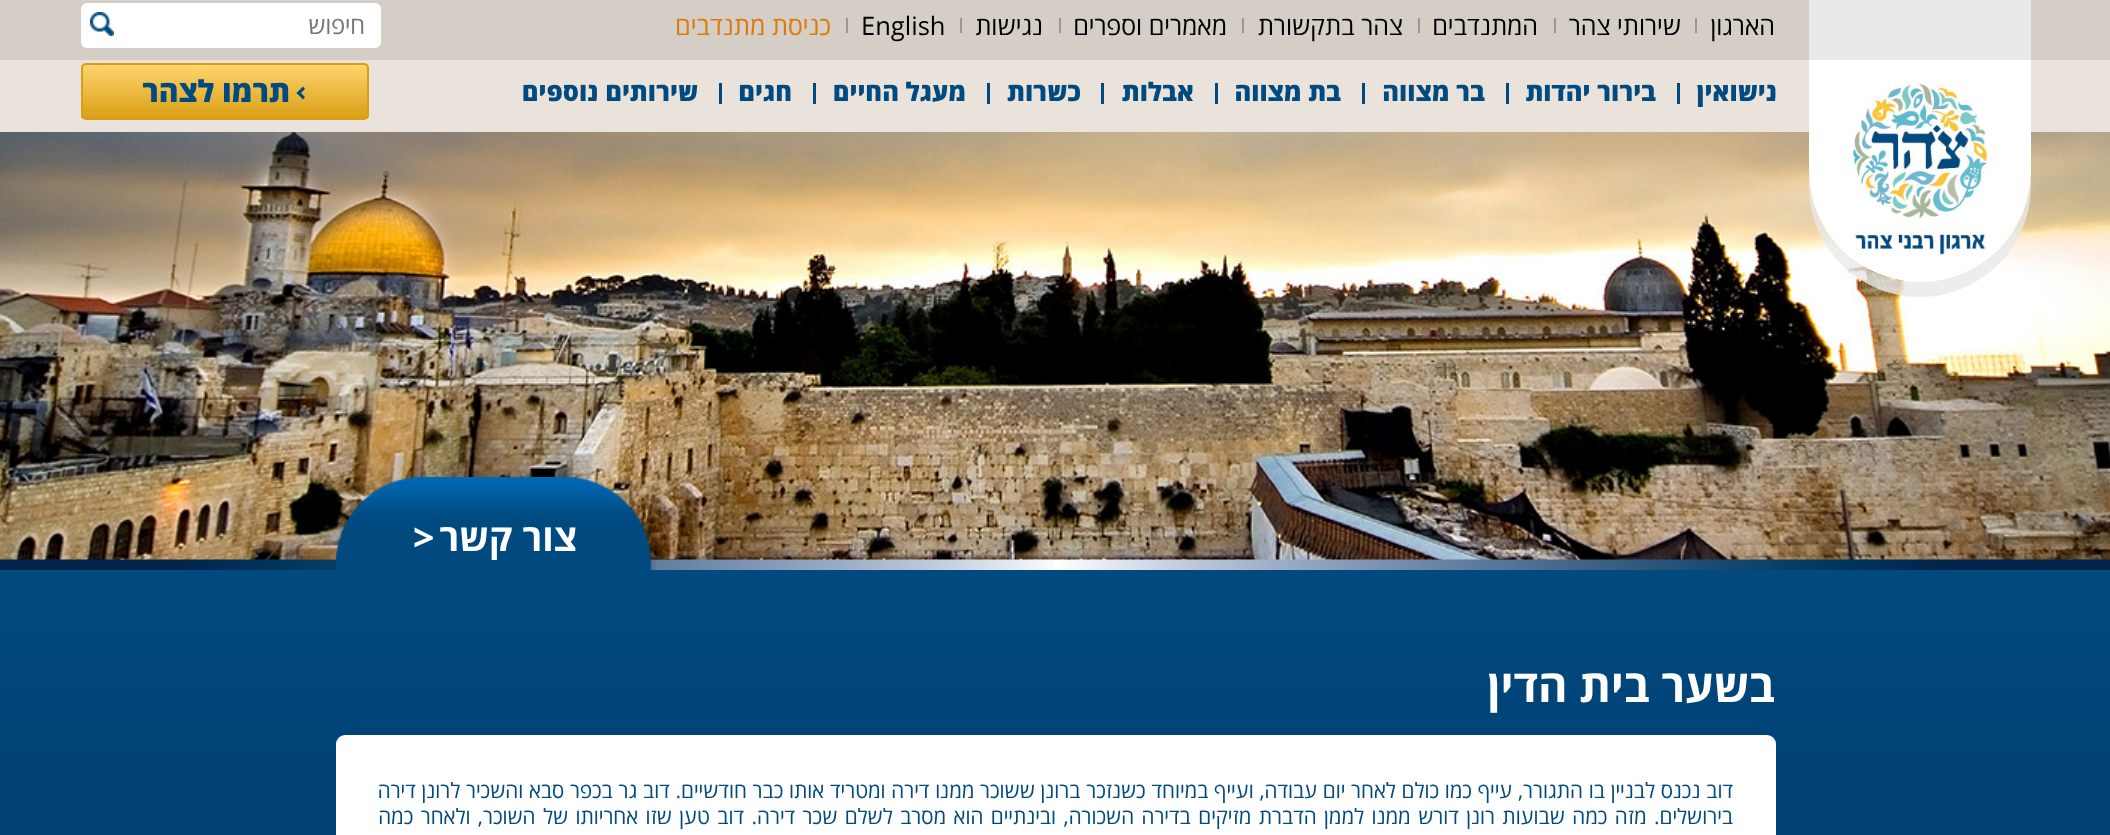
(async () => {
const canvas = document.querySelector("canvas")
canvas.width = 2110
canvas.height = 835
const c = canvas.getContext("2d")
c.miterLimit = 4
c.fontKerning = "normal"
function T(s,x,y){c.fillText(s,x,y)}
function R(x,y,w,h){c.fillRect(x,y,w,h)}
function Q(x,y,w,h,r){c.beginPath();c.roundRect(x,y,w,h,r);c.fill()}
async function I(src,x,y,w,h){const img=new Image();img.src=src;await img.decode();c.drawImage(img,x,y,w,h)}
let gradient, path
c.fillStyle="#fff"
R(0,0,2110,835)
c.fillStyle="#e9e3db"
R(0,60,2110,72)
c.fillStyle="#d4cec7"
R(0,0,2110,60)
await I("3.png",0,132,2110,428)
c.fillStyle="#e9e9e9cc"
path = new Path2D("M1809 171v15c0 61 50 111 111 111c61 0 111-50 111-111v-15c0 61-50 111-111 111c-61 0-111-50-111-111z")
c.fill(path)
c.fillStyle="#fff"
c.beginPath()
c.roundRect(1809,0,222,282,[0,0,111,111])
c.fill()
await I("1.png",1852,82,136,173)
c.fillStyle="#e9e9e9"
R(1809,0,222,60)
c.direction="rtl"
c.font="25.5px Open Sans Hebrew"
c.fillStyle="#000"
T("הארגון",1775,35)
c.fillStyle="#999"
R(1695,18,2,15)
c.fillStyle="#000"
T("שירותי צהר",1681,35)
c.fillStyle="#999"
R(1554,18,2,15)
c.fillStyle="#000"
T("המתנדבים",1538,35)
c.fillStyle="#999"
R(1418,18,2,15)
c.fillStyle="#000"
T("צהר בתקשורת",1403,35)
c.fillStyle="#999"
R(1242,18,2,15)
c.fillStyle="#000"
T("מאמרים וספרים",1227,35)
c.fillStyle="#999"
R(1059,18,2,15)
c.fillStyle="#000"
T("נגישות",1043,35)
c.fillStyle="#999"
R(960,18,2,15)
c.direction="ltr"
c.fillStyle="#000"
T("English",861,35)
c.fillStyle="#999"
R(846,18,2,15)
c.direction="rtl"
c.fillStyle="#de7909"
T("כניסת מתנדבים",831,35)
c.fillStyle="#fff"
Q(81,3,300,45,6)
c.font="24px Open Sans Hebrew"
c.fillStyle="#757575"
T("חיפוש",365,34)
await I("2.png",90,12,24,24)
c.font="800 25.5px Open Sans Hebrew"
c.fillStyle="#004a7f"
T("נישואין",1777,101)
c.fillStyle="#004a80"
R(1677,83,3,21)
c.fillStyle="#004a7f"
T("בירור יהדות",1656,101)
c.fillStyle="#004a80"
R(1506,83,3,21)
c.fillStyle="#004a7f"
T("בר מצווה",1485,101)
c.fillStyle="#004a80"
R(1362,83,3,21)
c.fillStyle="#004a7f"
T("בת מצווה",1341,101)
c.fillStyle="#004a80"
R(1215,83,3,21)
c.fillStyle="#004a7f"
T("אבלות",1194,101)
c.fillStyle="#004a80"
R(1101,83,3,21)
c.fillStyle="#004a7f"
T("כשרות",1081,101)
c.fillStyle="#004a80"
R(987,83,3,21)
c.fillStyle="#004a7f"
T("מעגל החיים",966,101)
c.fillStyle="#004a80"
R(813,83,3,21)
c.fillStyle="#004a7f"
T("חגים",792,101)
c.fillStyle="#004a80"
R(719,83,3,21)
c.fillStyle="#004a7f"
T("שירותים נוספים",698,101)
c.save()
c.beginPath()
c.roundRect(81,63,288,57,5)
c.clip()
gradient = c.createLinearGradient(225,119,225,65)
gradient.addColorStop(0,"#d99e13")
gradient.addColorStop(1,"#ffd46e")
c.fillStyle = gradient
R(81,65,288,54)
c.restore()
c.beginPath()
c.roundRect(82,64,286,55,4)
c.strokeStyle="#d99e13"
c.lineWidth=2
c.stroke()
c.fillStyle="#004a80"
path = new Path2D("M303 99.5l-6.5-6.5l2.5-2l6 6z")
c.fill(path)
path = new Path2D("M299 95l-2.5-2l6.5-6.5l2 2.5z")
c.fill(path)
c.font="800 30px Open Sans Hebrew"
c.fillStyle="#004a7f"
T("תרמו לצהר",290,102)
await I("5.png",0,559,2110,11)
await I("4.png",336,477,320,93)
c.font="bold 37.5px Open Sans Hebrew"
c.fillStyle="#fff"
T("צור קשר",577,551)
c.direction="ltr"
T(">",413,551)
gradient = c.createLinearGradient(1055,570,1055,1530)
gradient.addColorStop(0,"#004a80")
gradient.addColorStop(.98,"#00244c")
c.fillStyle = gradient
R(0,570,2110,265)
c.direction="rtl"
c.font="bold 45px Open Sans Hebrew"
c.fillStyle="#fff"
T("בשער בית הדין",1775,702)
Q(336,735,1440,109,9)
c.wordSpacing="0.3px"
c.font="21px Open Sans Hebrew"
c.fillStyle="#004a7f"
T("דוב נכנס לבניין בו התגורר, עייף כמו כולם לאחר יום עבודה, ועייף במיוחד כשנזכר ברונן ששוכר ממנו דירה ומטריד אותו כבר חודשיים. דוב גר בכפר סבא והשכיר לרונן דירה",1733,798)
c.wordSpacing="2px"
T("בירושלים. מזה כמה שבועות רונן דורש ממנו לממן הדברת מזיקים בדירה השכורה, ובינתיים הוא מסרב לשלם שכר דירה. דוב טען שזו אחריותו של השוכר, ולאחר כמה",1733,824)
})()
